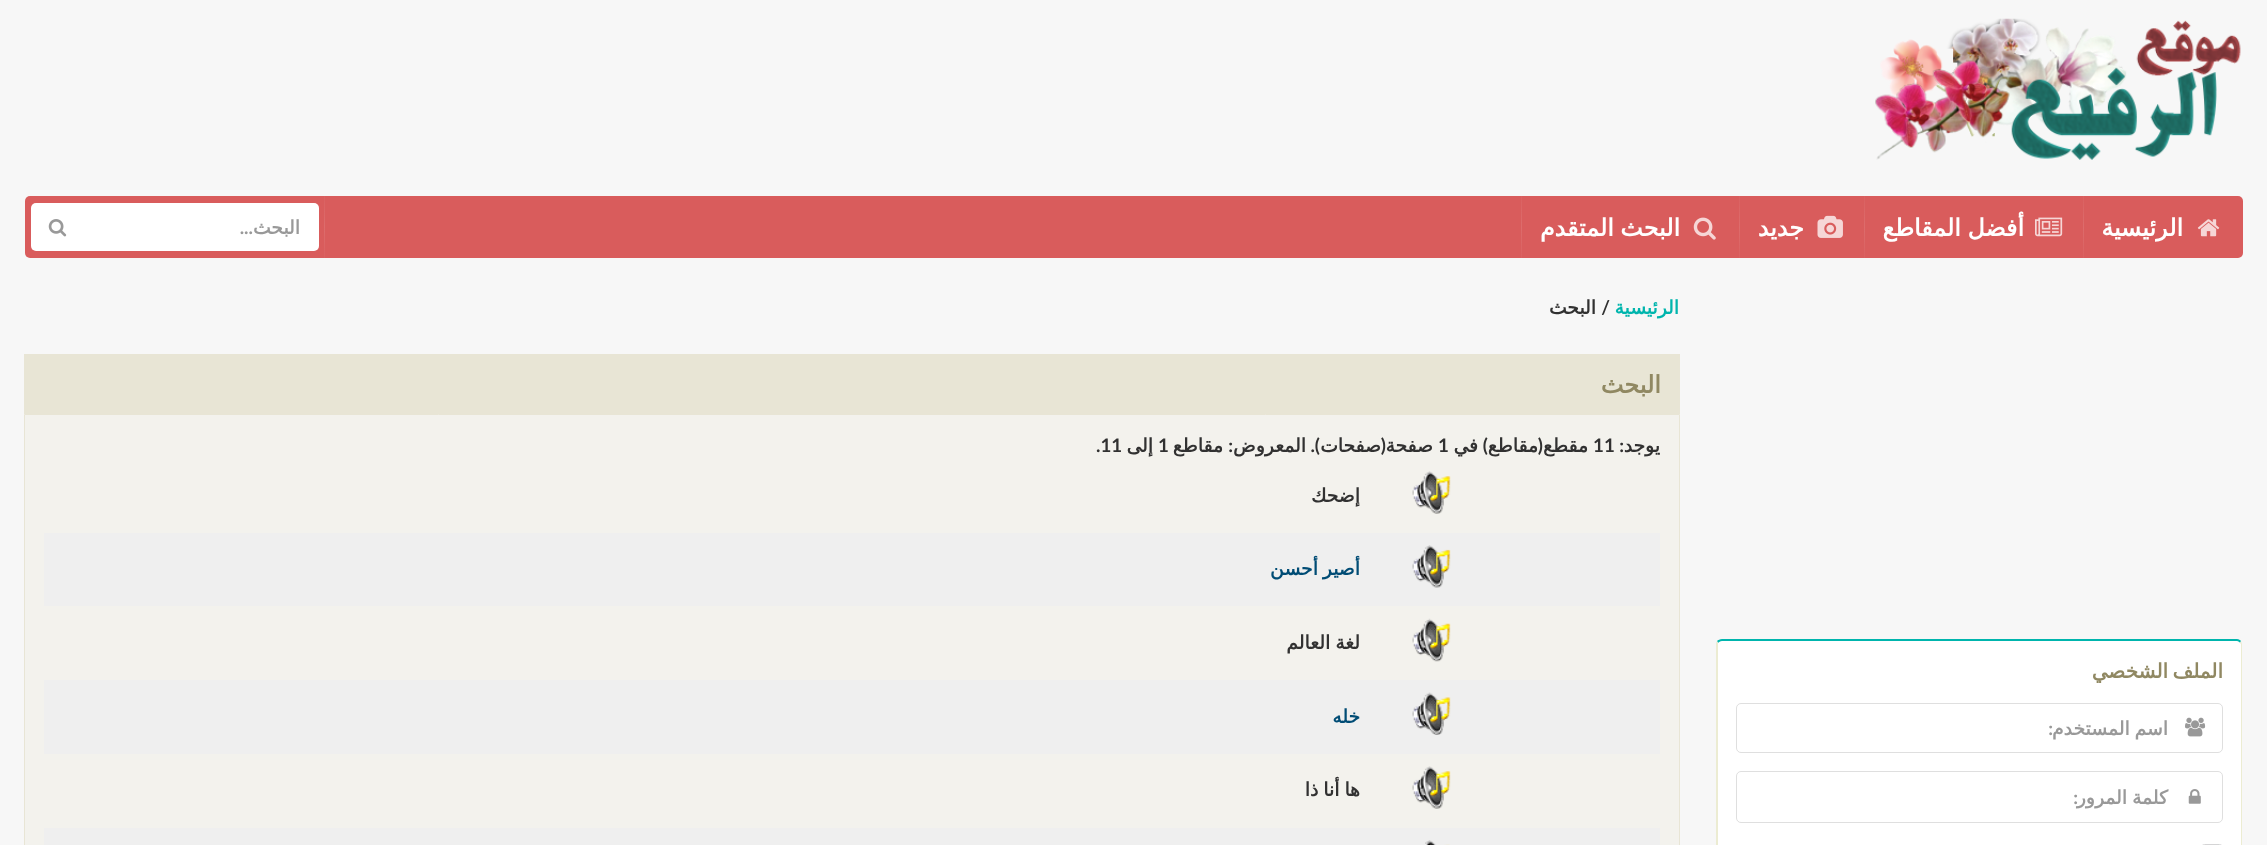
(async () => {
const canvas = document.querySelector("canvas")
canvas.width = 2267
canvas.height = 845
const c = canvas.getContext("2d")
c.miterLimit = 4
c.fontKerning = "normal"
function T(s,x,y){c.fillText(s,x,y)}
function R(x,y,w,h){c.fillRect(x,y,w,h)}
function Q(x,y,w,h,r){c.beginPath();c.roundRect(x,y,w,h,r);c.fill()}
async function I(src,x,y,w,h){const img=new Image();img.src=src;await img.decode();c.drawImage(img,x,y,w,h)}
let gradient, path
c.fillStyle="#f7f7f7"
R(0,0,2267,845)
await I("1.png",1875,18,366,142)
c.fillStyle="#d95c5c"
Q(25,196,2218,62,5)
await I("2.png",2197,219,23,18)
c.direction="rtl"
c.font="bold 23.75px DejaVu Sans"
c.fillStyle="#fff"
T("الرئيسية",2183,236)
gradient = c.createLinearGradient(2083,196,2083,258)
gradient.addColorStop(0,"#da6161")
gradient.addColorStop(.5,"#dd6c6c")
gradient.addColorStop(1,"#da6161")
c.fillStyle = gradient
R(2083,196,1,62)
await I("3.png",2035,217,28,20)
c.wordSpacing="-1px"
c.fillStyle="#fff"
T("أفضل المقاطع",2024,236)
gradient = c.createLinearGradient(1864,196,1864,258)
gradient.addColorStop(0,"#da6161")
gradient.addColorStop(.5,"#dd6c6c")
gradient.addColorStop(1,"#da6161")
c.fillStyle = gradient
R(1864,196,1,62)
await I("4.png",1817,215,26,23)
c.wordSpacing="0px"
c.fillStyle="#fff"
T("جديد",1804,236)
gradient = c.createLinearGradient(1739,196,1739,258)
gradient.addColorStop(0,"#da6161")
gradient.addColorStop(.5,"#dd6c6c")
gradient.addColorStop(1,"#da6161")
c.fillStyle = gradient
R(1739,196,1,62)
await I("5.png",1693,217,23,23)
c.wordSpacing="-1px"
c.fillStyle="#fff"
T("البحث المتقدم",1680,236)
gradient = c.createLinearGradient(1522,196,1522,258)
gradient.addColorStop(0,"#da6161")
gradient.addColorStop(.5,"#dd6c6c")
gradient.addColorStop(1,"#da6161")
c.fillStyle = gradient
R(1521,196,1,62)
gradient = c.createLinearGradient(324,196,324,258)
gradient.addColorStop(0,"#da6161")
gradient.addColorStop(.5,"#dd6c6c")
gradient.addColorStop(1,"#da6161")
c.fillStyle = gradient
R(324,196,1,62)
c.fillStyle="#fff"
Q(31,203,288,48,5)
c.wordSpacing="0px"
c.font="bold 18.75px DejaVu Sans"
c.fillStyle="#999"
T("البحث",300,234)
c.font="bold 18.75px Lato"
T("...",253,234)
await I("6.png",48,219,19,18)
c.fillStyle="#fff"
path = new Path2D("M1722 641h515c2 0 4 2 4 3v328c0 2-2 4-4 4h-515c-3 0-4-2-4-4v-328c0-1 1-3 4-3z")
c.fill(path)
c.fillStyle="#00b5ad"
path = new Path2D("M1722 639c-2 0-4 1-5 2l1 2c1-1 2-2 4-2h515c1 0 3 1 3 2l1-2c-1-1-2-2-4-2z")
c.fill(path)
c.fillStyle="#ececd2"
path = new Path2D("M2241 641l1 3v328l-1 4l-1-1l1-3v-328l-1-1z")
c.fill(path)
path = new Path2D("M1716 643l1-2l1 2v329l1 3l-1 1l-2-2z")
c.fill(path)
c.wordSpacing="-2px"
c.font="bold 20px DejaVu Sans"
c.fillStyle="#908862"
T("الملف الشخصي",2223,678)
c.beginPath()
c.roundRect(1736.5,703.5,486,49,4.5)
c.strokeStyle="#dfdfdf"
c.stroke()
await I("7.png",2185,717,21,20)
c.wordSpacing="-1px"
c.font="bold 18.75px DejaVu Sans"
c.fillStyle="#999"
T("اسم المستخدم",2168,735)
c.wordSpacing="0px"
c.font="bold 18.75px Lato"
T(":",2053,735)
c.beginPath()
c.roundRect(1736.5,771.5,486,51,4.5)
c.stroke()
await I("8.png",2188,789,13,15)
T(":",2078,804)
c.save()
c.beginPath()
c.rect(1756,785,413,24)
c.clip()
c.wordSpacing="-1px"
c.font="bold 18.75px DejaVu Sans"
T("كلمة المرور",2168,804)
c.restore()
c.beginPath()
c.roundRect(2201.5,844.5,21,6,4.5)
c.strokeStyle="#d4d4d5"
c.stroke()
c.font="bold 18.75px DejaVu Sans"
c.fillStyle="#00b5ad"
T("الرئيسية",1679,314)
c.font="bold 18.75px Lato"
c.fillStyle="#313131"
T("/",1610,314)
c.font="bold 18.75px DejaVu Sans"
T("البحث",1596,314)
c.fillStyle="#e8e5d5"
R(24,354,1656,60)
c.font="bold 24px DejaVu Sans"
c.fillStyle="#908862"
T("البحث",1661,393)
c.fillStyle="#f3f2ed"
c.beginPath()
c.rect(24.5,414.5,1655,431)
c.fill()
c.strokeStyle="#e8e5d5"
c.stroke()
c.font="bold 18.75px DejaVu Sans"
c.fillStyle="#313131"
T("يوجد",1660,452)
c.font="bold 18.75px Lato"
T(":",1624,452)
c.direction="ltr"
T("11",1593,452)
c.direction="rtl"
c.font="bold 18.75px DejaVu Sans"
T("مقطع",1588,452)
c.font="bold 18.75px Lato"
T("(",1543,452)
c.font="bold 18.75px DejaVu Sans"
T("مقاطع",1538,452)
c.font="bold 18.75px Lato"
T(")",1488,452)
c.font="bold 18.75px DejaVu Sans"
T("في",1478,452)
c.direction="ltr"
c.font="bold 18.75px Lato"
T("1",1438,452)
c.direction="rtl"
c.font="bold 18.75px DejaVu Sans"
T("صفحة",1433,452)
c.font="bold 18.75px Lato"
T("(",1386,452)
c.font="bold 18.75px DejaVu Sans"
T("صفحات",1381,452)
c.font="bold 18.75px Lato"
T(").",1320,452)
c.font="bold 18.75px DejaVu Sans"
T("المعروض",1306,452)
c.font="bold 18.75px Lato"
T(":",1233,452)
c.font="bold 18.75px DejaVu Sans"
T("مقاطع",1223,452)
c.direction="ltr"
c.font="bold 18.75px Lato"
T("1",1158,452)
c.direction="rtl"
c.font="bold 18.75px DejaVu Sans"
T("إلى",1153,452)
c.direction="ltr"
c.font="bold 18.75px Lato"
T(".11",1096,452)
await I("9.png",1412,471,39,43)
c.direction="rtl"
c.font="bold 18.75px DejaVu Sans"
T("إضحك",1360,502)
c.fillStyle="#efefef"
R(44,533,1616,73)
await I("10.png",1412,545,39,43)
c.wordSpacing="-1px"
c.fillStyle="#004c75"
T("أصير أحسن",1360,575)
await I("11.png",1412,618,39,44)
c.fillStyle="#313131"
T("لغة العالم",1360,649)
c.fillStyle="#efefef"
R(44,680,1616,74)
await I("12.png",1412,692,39,43)
c.wordSpacing="0px"
c.fillStyle="#004c75"
T("خله",1360,723)
await I("9.png",1412,766,39,43)
c.wordSpacing="-1px"
c.fillStyle="#313131"
T("ها أنا ذا",1360,796)
c.fillStyle="#efefef"
R(44,828,1616,17)
await I("13.png",1425,840,25,5)
})()
